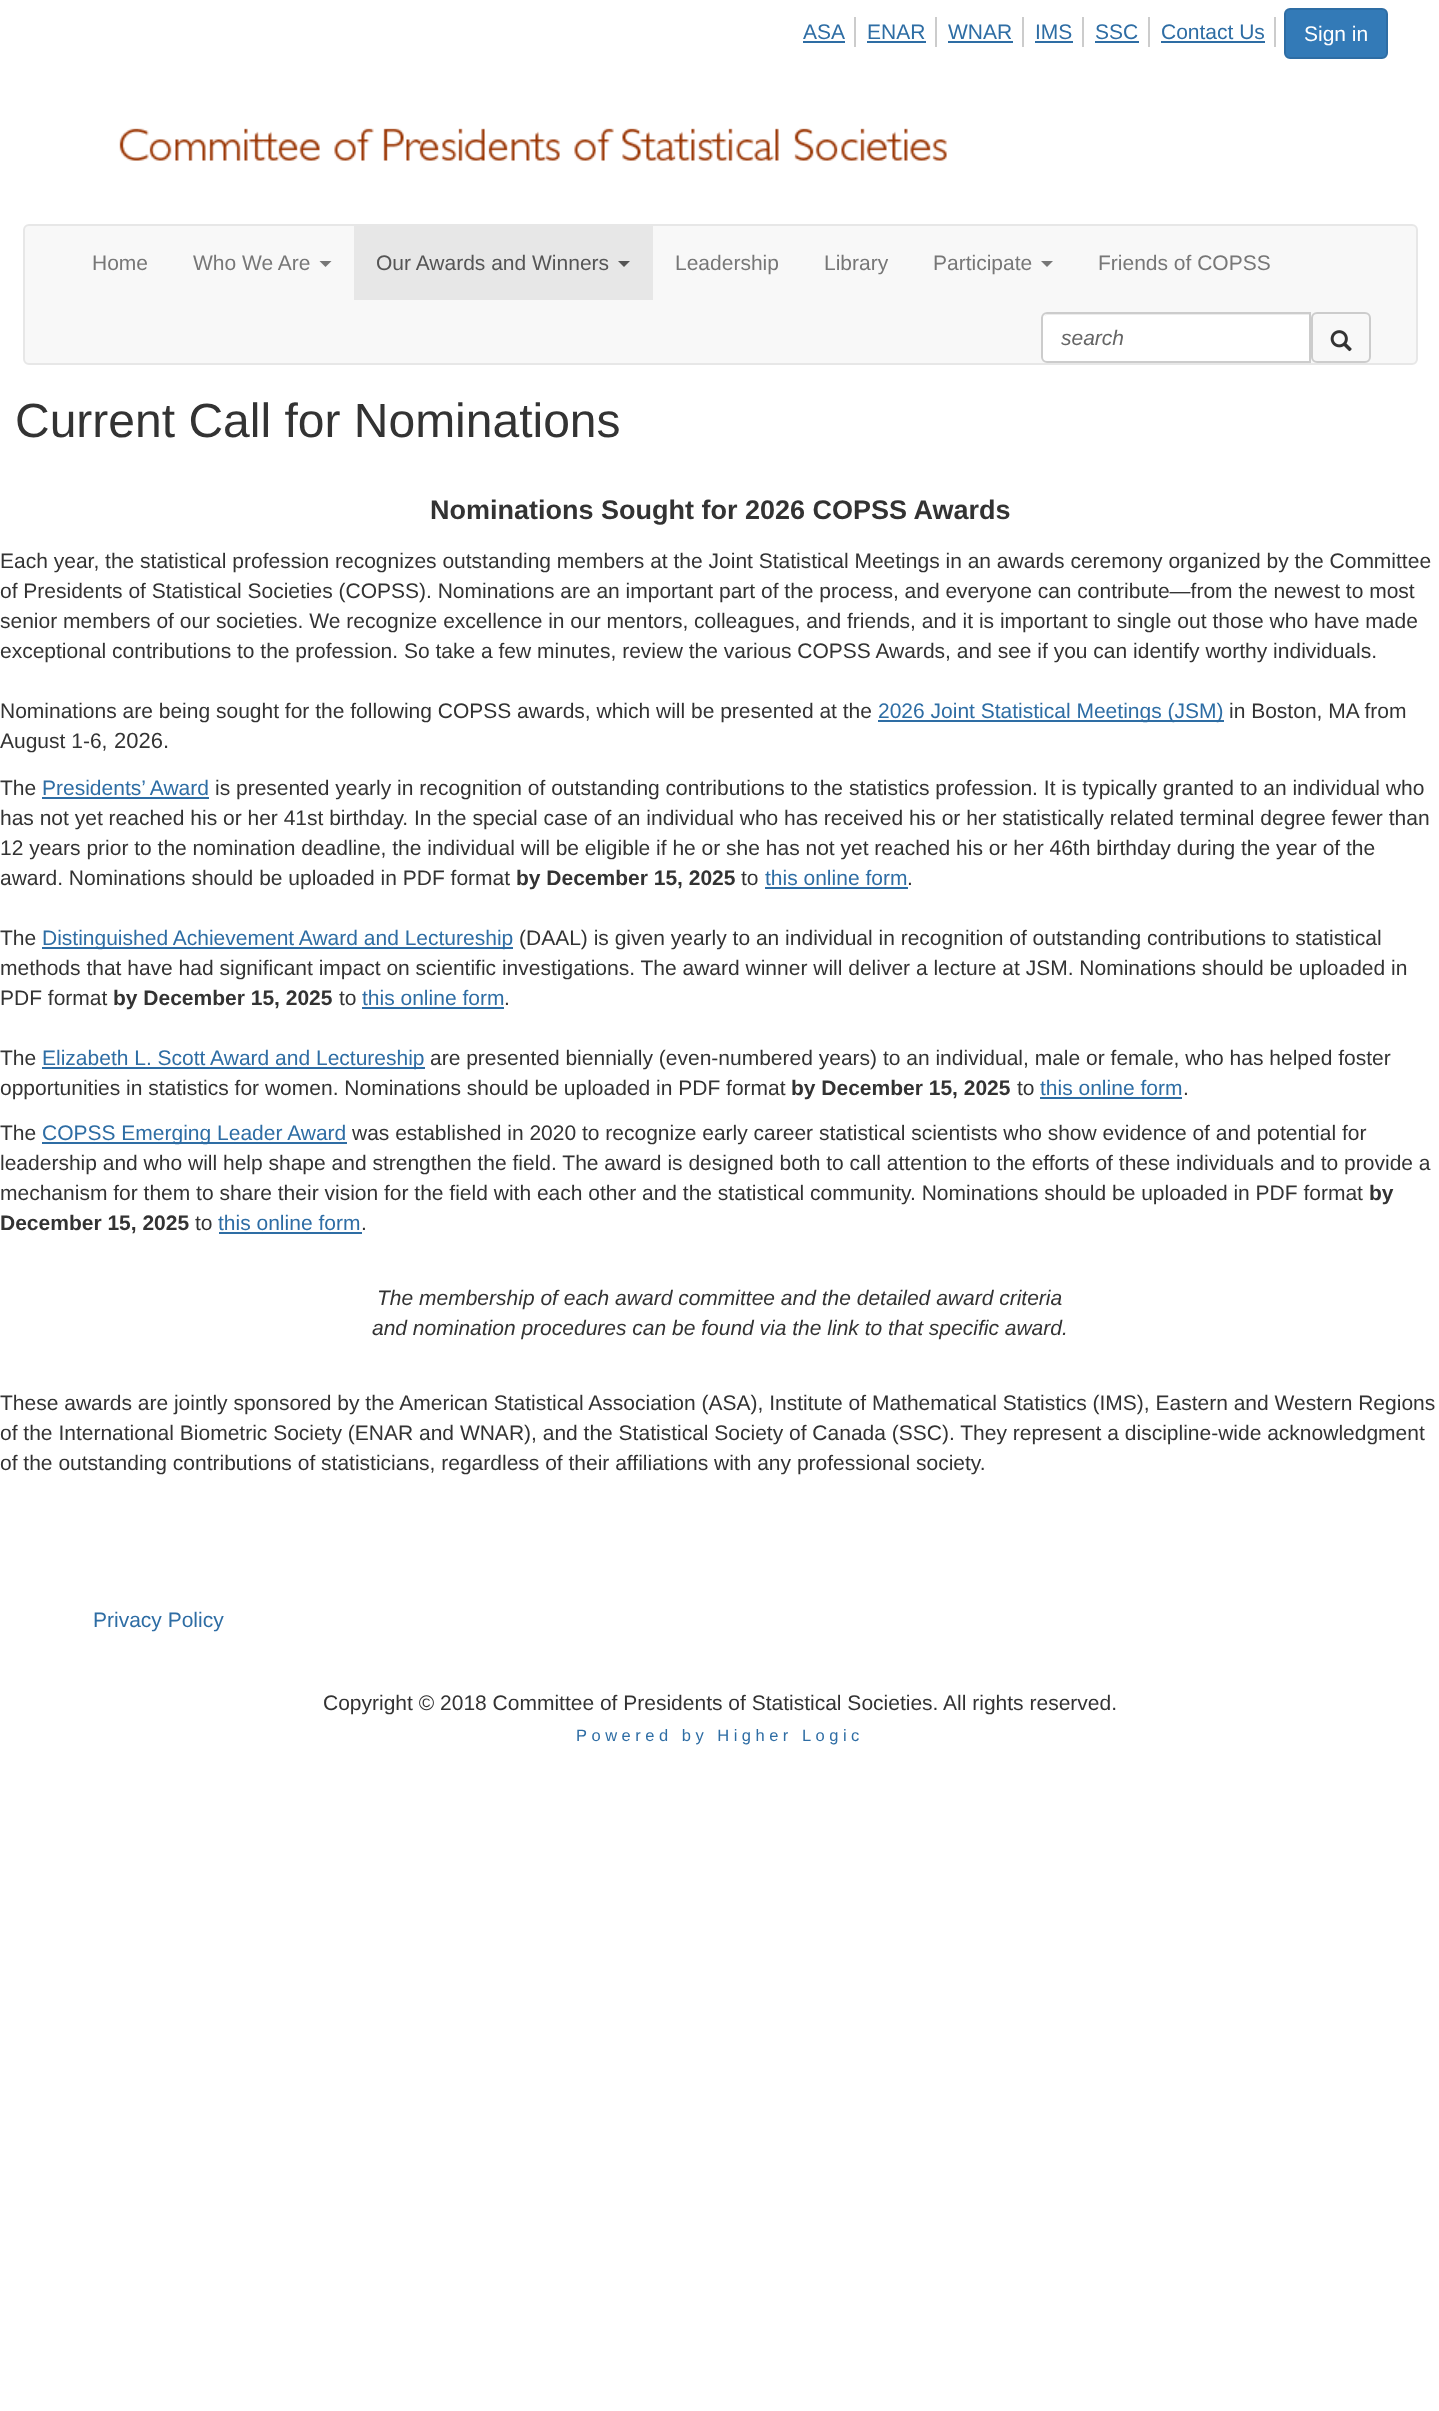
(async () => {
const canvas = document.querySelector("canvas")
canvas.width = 1439
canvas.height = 2411
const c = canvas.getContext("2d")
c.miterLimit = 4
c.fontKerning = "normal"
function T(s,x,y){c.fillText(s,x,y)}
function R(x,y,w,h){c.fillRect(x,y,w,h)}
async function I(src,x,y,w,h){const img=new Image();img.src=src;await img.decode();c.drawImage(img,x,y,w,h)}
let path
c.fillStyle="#fff"
R(0,0,1439,2411)
c.fillStyle="#ccc"
R(854,17,2,30)
c.font="21px Liberation Sans"
c.fillStyle="#2e6da4"
T("ASA",803,39)
R(803,41,42,2)
c.fillStyle="#ccc"
R(935,17,2,30)
c.fillStyle="#2e6da4"
T("ENAR",867,39)
R(867,41,59,2)
c.fillStyle="#ccc"
R(1022,17,2,30)
c.fillStyle="#2e6da4"
T("WNAR",948,39)
R(948,41,65,2)
c.fillStyle="#ccc"
R(1082,17,2,30)
c.fillStyle="#2e6da4"
T("IMS",1035,39)
R(1035,41,38,2)
c.fillStyle="#ccc"
R(1148,17,2,30)
c.fillStyle="#2e6da4"
T("SSC",1095,39)
R(1095,41,44,2)
c.fillStyle="#ccc"
R(1274,17,2,30)
c.fillStyle="#2e6da4"
T("Contact Us",1161,39)
R(1161,41,104,2)
c.fillStyle="#337ab7"
c.beginPath()
c.roundRect(1285,9,102,49,5)
c.fill()
c.strokeStyle="#2e6da4"
c.lineWidth=2
c.stroke()
c.fillStyle="#fff"
T("Sign in",1304,41)
await I("1.png",119,128,828,33)
c.fillStyle="#f8f8f8"
c.beginPath()
c.roundRect(24,225,1393,139,5)
c.fill()
c.strokeStyle="#e7e7e7"
c.stroke()
c.fillStyle="#777"
T("Home",92,270)
T("Who We Are",193,270)
path = new Path2D("M319.5 261h12l-6 6z")
c.fill(path)
c.fillStyle="#e7e7e7"
R(354,226,299,74)
c.fillStyle="#555"
T("Our Awards and Winners",376,270)
path = new Path2D("M618 261h12l-6 6z")
c.fill(path)
c.fillStyle="#777"
T("Leadership",675,270)
T("Library",824,270)
T("Participate",933,270)
path = new Path2D("M1041 261h12l-6 6z")
c.fill(path)
T("Friends of COPSS",1098,270)
c.fillStyle="#fff"
c.beginPath()
c.roundRect(1041,312,270,51,[6,0,0,6])
c.fill()
c.fillStyle="#ececec"
path = new Path2D("M1047 315h263v-1h-263l-2 1l-1 1z")
c.fill(path)
c.beginPath()
c.roundRect(1042,313,268,49,[5,0,0,5])
c.strokeStyle="#ccc"
c.stroke()
c.font="italic 21px Liberation Sans"
c.fillStyle="#666"
T("search",1061,345)
c.beginPath()
c.roundRect(1312,313,58,49,5)
c.stroke()
await I("2.png",1330,330,22,22)
c.font="48px Liberation Sans"
c.fillStyle="#333"
T("Current Call for Nominations",15,437)
c.font="bold 27px Liberation Sans"
T("Nominations Sought for 2026 COPSS Awards",430,519)
c.font="21px Liberation Sans"
T("Each year, the statistical profession recognizes outstanding members at the Joint Statistical Meetings in an awards ceremony organized by the Committee",0,568)
T("of Presidents of Statistical Societies (COPSS). Nominations are an important part of the process, and everyone can contribute—from the newest to most",0,598)
T("senior members of our societies. We recognize excellence in our mentors, colleagues, and friends, and it is important to single out those who have made",0,628)
T("exceptional contributions to the profession. So take a few minutes, review the various COPSS Awards, and see if you can identify worthy individuals.",0,658)
T("Nominations are being sought for the following COPSS awards, which will be presented at the",0,718)
c.fillStyle="#2e6da4"
R(878,720,346,2)
T("2026 Joint Statistical Meetings (JSM)",878,718)
c.fillStyle="#333"
T("in Boston, MA from",1229,718)
T("August 1-6,",0,748)
c.font="22px Liberation Sans"
T("2026.",114,748)
c.font="21px Liberation Sans"
T("The",0,795)
c.fillStyle="#2e6da4"
T("Presidents’ Award",42,795)
R(42,797,167,2)
c.fillStyle="#333"
T("is presented yearly in recognition of outstanding contributions to the statistics profession. It is typically granted to an individual who",215,795)
T("has not yet reached his or her 41st birthday. In the special case of an individual who has received his or her statistically related terminal degree fewer than",0,825)
T("12 years prior to the nomination deadline, the individual will be eligible if he or she has not yet reached his or her 46th birthday during the year of the",0,855)
T("award. Nominations should be uploaded in PDF format",0,885)
c.font="bold 21px Liberation Sans"
T("by December 15, 2025",516,885)
c.font="21px Liberation Sans"
T("to",741,885)
c.fillStyle="#2e6da4"
T("this online form",765,885)
R(765,887,143,2)
c.fillStyle="#333"
T(".",907,885)
T("The",0,945)
c.fillStyle="#2e6da4"
R(42,947,471,2)
T("Distinguished Achievement Award and Lectureship",42,945)
c.fillStyle="#333"
T("(DAAL) is given yearly to an individual in recognition of outstanding contributions to statistical",519,945)
T("methods that have had significant impact on scientific investigations. The award winner will deliver a lecture at JSM. Nominations should be uploaded in",0,975)
T("PDF format",0,1005)
c.font="bold 21px Liberation Sans"
T("by December 15, 2025",113,1005)
c.font="21px Liberation Sans"
T("to",339,1005)
c.fillStyle="#2e6da4"
T("this online form",362,1005)
R(362,1007,142,2)
c.fillStyle="#333"
T(".",504,1005)
T("The",0,1065)
c.fillStyle="#2e6da4"
R(42,1067,383,2)
T("Elizabeth L. Scott Award and Lectureship",42,1065)
c.fillStyle="#333"
T("are presented biennially (even-numbered years) to an individual, male or female, who has helped foster",430,1065)
T("opportunities in statistics for women. Nominations should be uploaded in PDF format",0,1095)
c.font="bold 21px Liberation Sans"
T("by December 15, 2025",791,1095)
c.font="21px Liberation Sans"
T("to",1017,1095)
c.fillStyle="#2e6da4"
T("this online form",1040,1095)
R(1040,1097,142,2)
c.fillStyle="#333"
T(".",1183,1095)
T("The",0,1140)
c.fillStyle="#2e6da4"
R(42,1142,305,2)
T("COPSS Emerging Leader Award",42,1140)
c.fillStyle="#333"
T("was established in 2020 to recognize early career statistical scientists who show evidence of and potential for",352,1140)
T("leadership and who will help shape and strengthen the field. The award is designed both to call attention to the efforts of these individuals and to provide a",0,1170)
T("mechanism for them to share their vision for the field with each other and the statistical community. Nominations should be uploaded in PDF format",0,1200)
c.font="bold 21px Liberation Sans"
T("by",1369,1200)
T("December 15, 2025",0,1230)
c.font="21px Liberation Sans"
T("to",195,1230)
c.fillStyle="#2e6da4"
T("this online form",218,1230)
c.fillStyle="#333"
T(".",361,1230)
c.fillStyle="#2e6da4"
R(219,1232,143,2)
c.font="italic 21px Liberation Sans"
c.fillStyle="#333"
T("The membership of each award committee and the detailed award criteria",377,1305)
T("and nomination procedures can be found via the link to that specific award.",372,1335)
c.font="21px Liberation Sans"
T("These awards are jointly sponsored by the American Statistical Association (ASA), Institute of Mathematical Statistics (IMS), Eastern and Western Regions",0,1410)
T("of the International Biometric Society (ENAR and WNAR), and the Statistical Society of Canada (SSC). They represent a discipline-wide acknowledgment",0,1440)
T("of the outstanding contributions of statisticians, regardless of their affiliations with any professional society.",0,1470)
c.fillStyle="#2e6da4"
T("Privacy Policy",93,1627)
c.fillStyle="#333"
T("Copyright © 2018 Committee of Presidents of Statistical Societies. All rights reserved.",323,1710)
c.letterSpacing="4.5px"
c.font="16.5px Liberation Sans"
c.fillStyle="#2e6da4"
T("Powered by Higher Logic",576,1741)
})()
